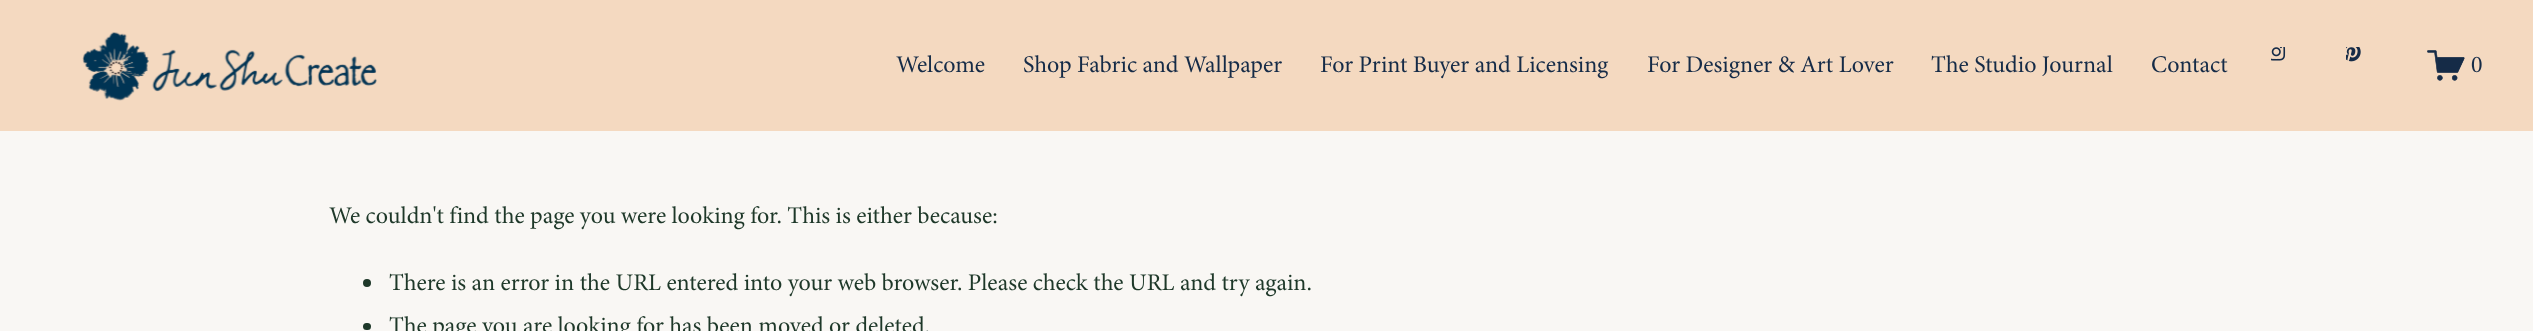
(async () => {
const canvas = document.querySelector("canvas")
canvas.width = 2533
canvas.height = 331
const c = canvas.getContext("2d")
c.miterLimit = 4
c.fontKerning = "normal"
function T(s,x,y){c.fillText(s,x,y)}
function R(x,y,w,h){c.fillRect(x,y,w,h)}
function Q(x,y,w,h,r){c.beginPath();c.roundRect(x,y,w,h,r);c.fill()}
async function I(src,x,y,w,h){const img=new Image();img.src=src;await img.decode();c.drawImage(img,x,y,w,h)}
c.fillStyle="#f9f7f4"
R(0,0,2533,331)
c.fillStyle="#f4d9c0"
R(0,0,2533,131)
await I("1.png",82,32,295,69)
c.font="24px Minion"
c.fillStyle="#152b47"
T("Welcome",896,72)
T("Shop Fabric and Wallpaper",1023,72)
T("For Print Buyer and Licensing",1320,72)
T("For Designer & Art Lover",1647,72)
T("The Studio Journal",1931,72)
T("Contact",2151,72)
await I("2.png",2271,47,15,14)
await I("3.png",2346,47,15,15)
await I("4.png",2427,50,38,31)
T("0",2471,72)
c.fillStyle="#1e3829"
T("We couldn't find the page you were looking for. This is either because:",329,223)
c.beginPath()
c.arc(367,283,4,0,7)
c.fill()
T("There is an error in the URL entered into your web browser. Please check the URL and try again.",389,290)
Q(363,323,8,7,3.5)
T("The page you are looking for has been moved or deleted.",389,333)
})()
